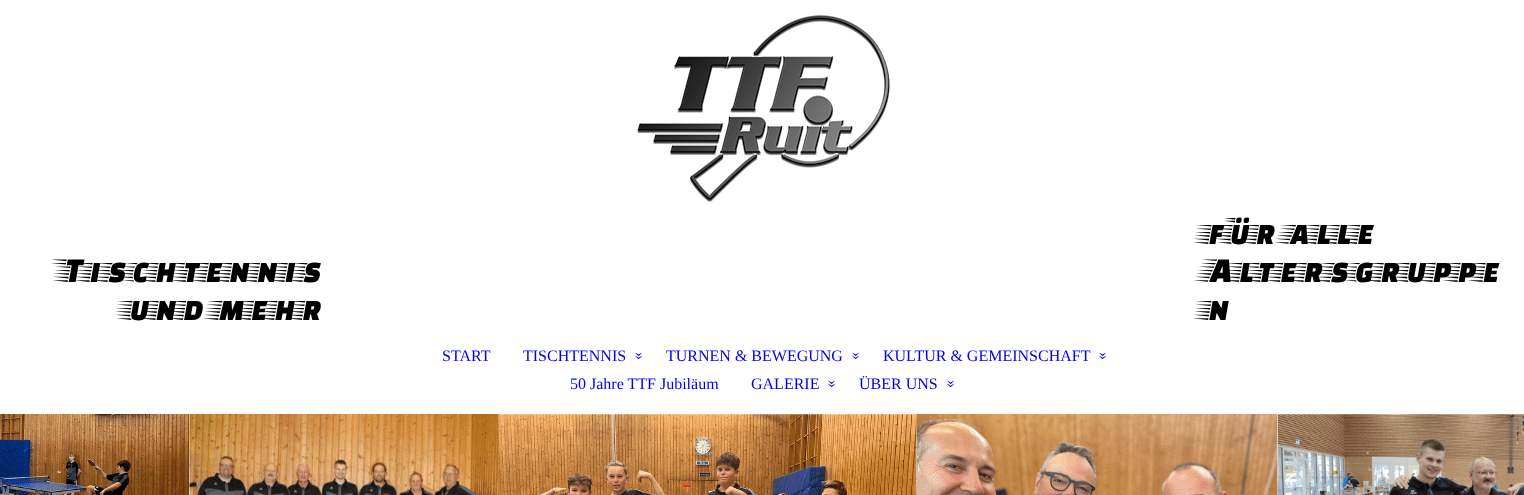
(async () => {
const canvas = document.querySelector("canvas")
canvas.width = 1524
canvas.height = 495
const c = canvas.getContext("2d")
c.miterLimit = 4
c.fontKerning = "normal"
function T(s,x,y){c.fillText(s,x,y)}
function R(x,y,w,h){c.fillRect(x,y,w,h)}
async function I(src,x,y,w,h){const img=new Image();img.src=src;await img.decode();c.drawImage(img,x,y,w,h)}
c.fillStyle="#fff"
R(0,0,1524,495)
await I("1.png",637,15,253,187)
c.font="36px Faster One"
c.fillStyle="#000"
T("Tischtennis",57,282)
T("und mehr",123,320)
T("für alle",1202,244)
T("Altersgruppe",1202,282)
T("n",1202,320)
c.font="16px Liberation Serif"
c.fillStyle="#00e"
T("START",442,361)
T("TISCHTENNIS",523,361)
c.save()
c.translate(635,352)
c.rotate(90 * Math.PI / 180)
c.fillText("»",0,0)
c.restore()
T("TURNEN & BEWEGUNG",666,361)
c.save()
c.translate(852,352)
c.rotate(90 * Math.PI / 180)
c.fillText("»",0,0)
c.restore()
T("KULTUR & GEMEINSCHAFT",883,361)
c.save()
c.translate(1099,352)
c.rotate(90 * Math.PI / 180)
c.fillText("»",0,0)
c.restore()
T("50 Jahre TTF Jubiläum",570,389)
T("GALERIE",751,389)
c.save()
c.translate(828,380)
c.rotate(90 * Math.PI / 180)
c.fillText("»",0,0)
c.restore()
T("ÜBER UNS",859,389)
c.save()
c.translate(947,380)
c.rotate(90 * Math.PI / 180)
c.fillText("»",0,0)
c.restore()
await I("2.png",0,414,1524,81)
})()
